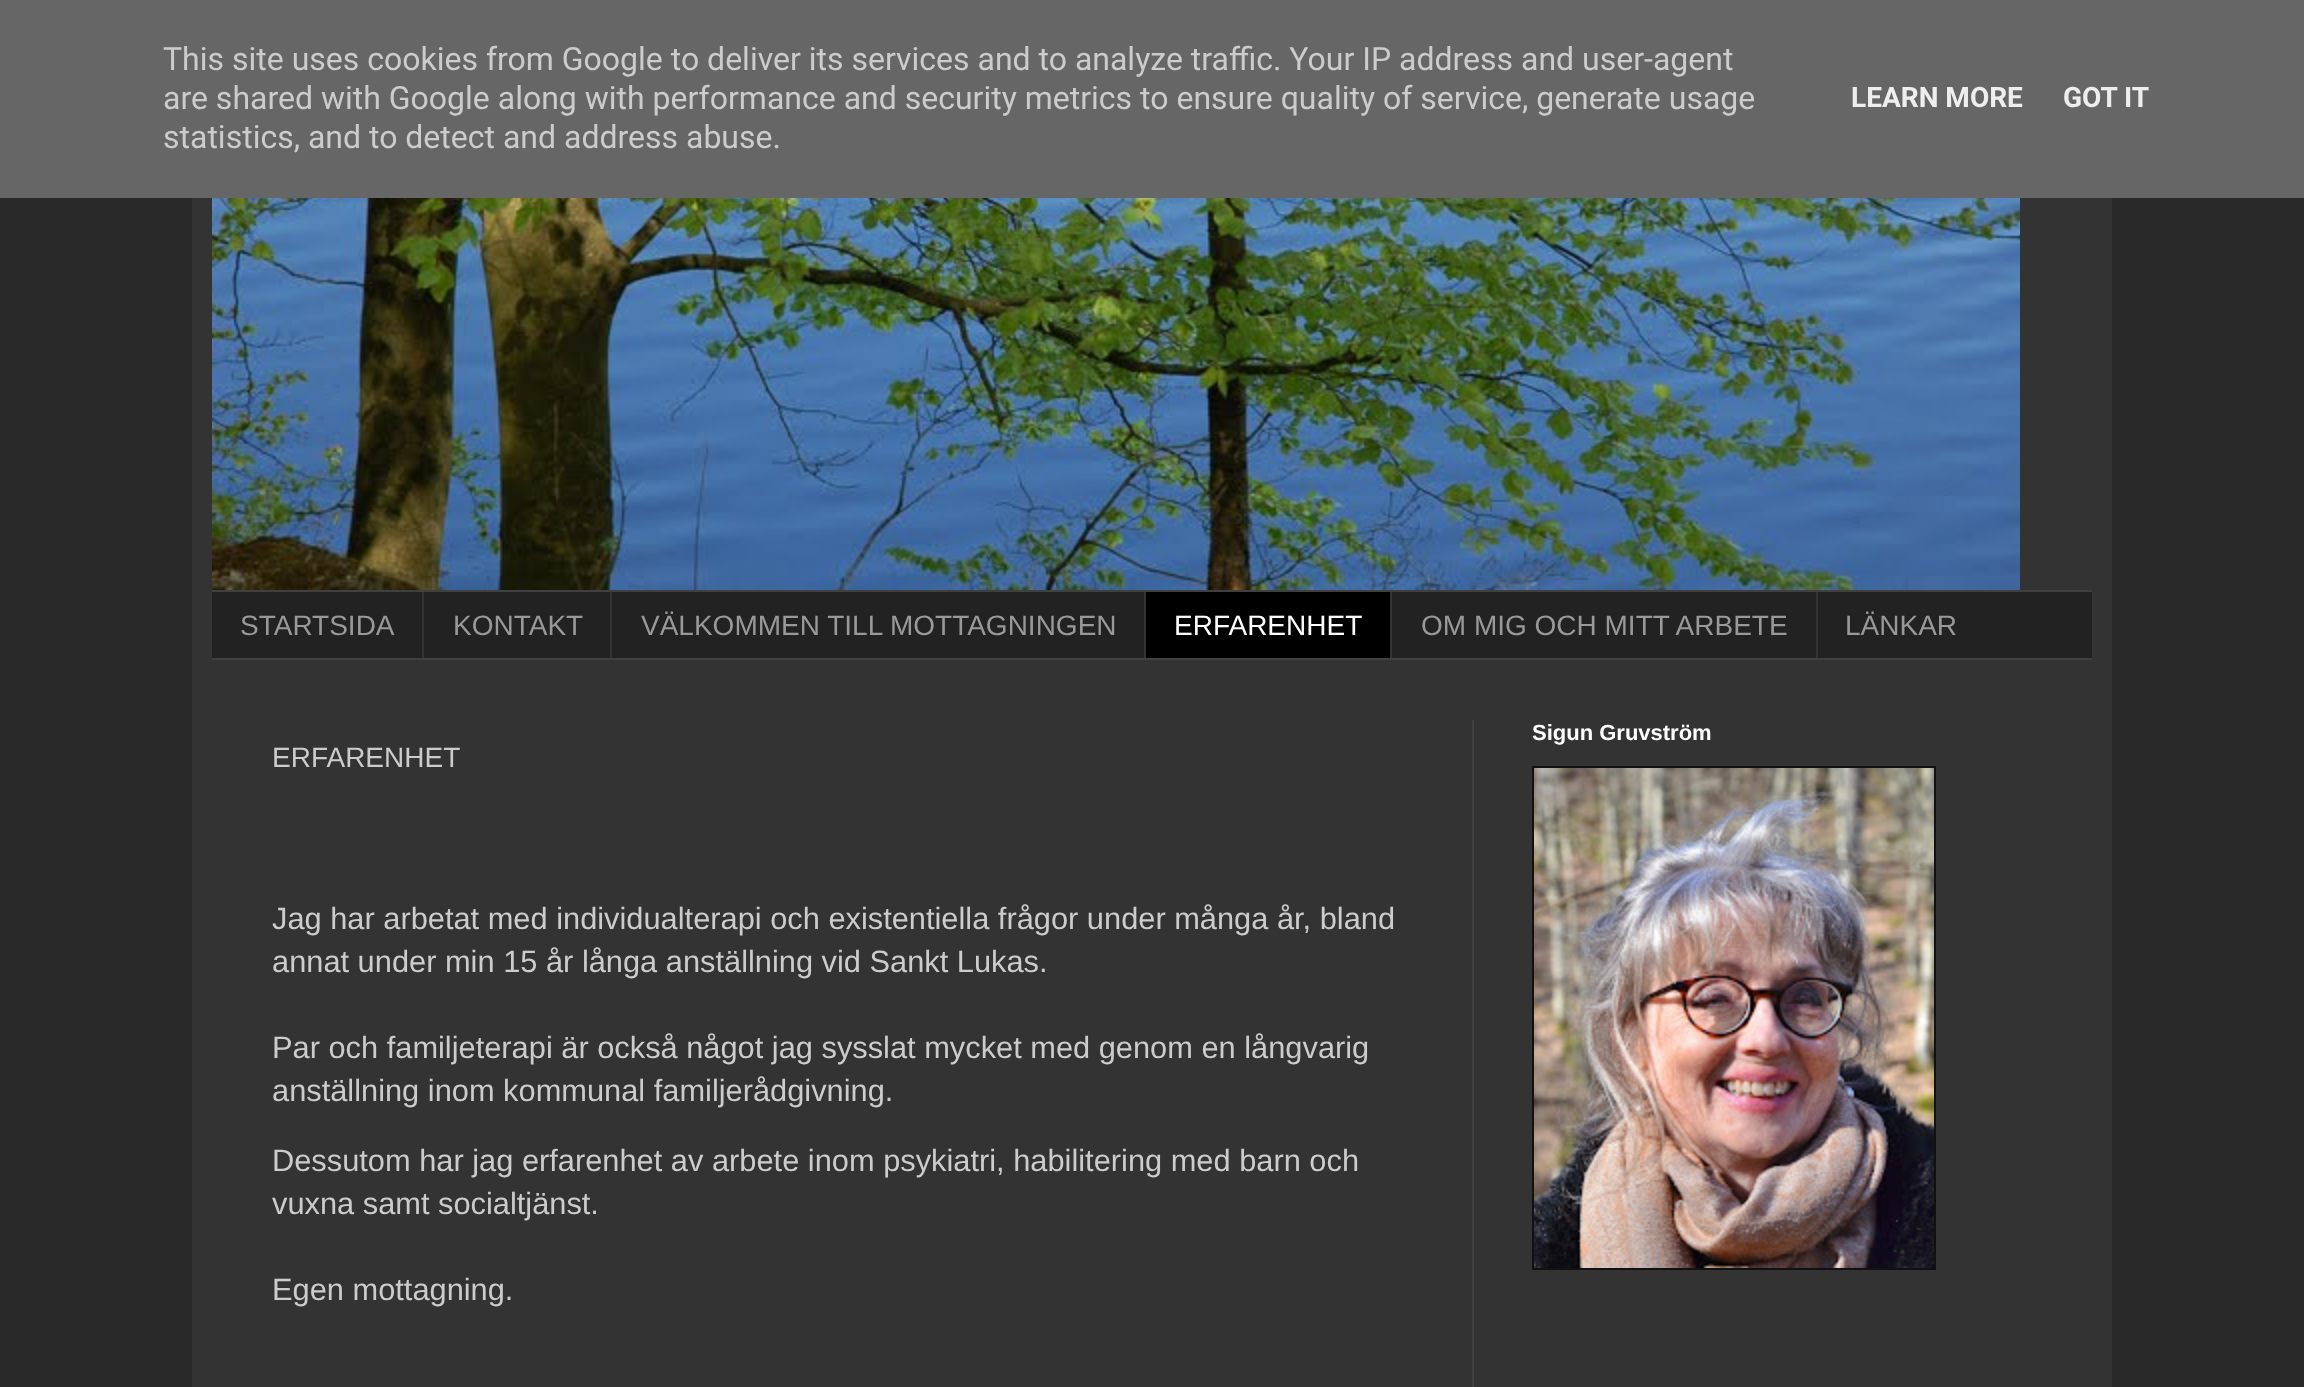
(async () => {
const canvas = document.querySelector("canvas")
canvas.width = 2304
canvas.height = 1387
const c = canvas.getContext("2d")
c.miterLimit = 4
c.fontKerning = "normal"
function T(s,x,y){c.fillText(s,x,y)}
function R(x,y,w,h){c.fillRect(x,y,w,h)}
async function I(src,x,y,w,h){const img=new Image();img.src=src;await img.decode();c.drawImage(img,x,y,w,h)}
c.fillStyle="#292929"
R(0,0,2304,1387)
c.fillStyle="#666"
R(0,0,2304,198)
c.font="32px Roboto"
c.fillStyle="#ccc"
T("This site uses cookies from Google to deliver its services and to analyze traffic. Your IP address and user-agent",163,70)
T("are shared with Google along with performance and security metrics to ensure quality of service, generate usage",163,109)
T("statistics, and to detect and address abuse.",163,148)
c.font="bold 28px Roboto"
c.fillStyle="#eee"
T("LEARN MORE",1851,107)
T("GOT IT",2063,107)
c.fillStyle="#333"
R(192,198,1920,1189)
await I("1.png",212,198,1808,392)
c.fillStyle="#222"
R(212,592,1880,66)
c.fillStyle="#404040"
R(212,590,1880,2)
R(212,658,1880,2)
c.font="28px Liberation Sans"
c.fillStyle="#999"
T("STARTSIDA",240,635)
c.fillStyle="#333"
R(422,592,2,66)
c.fillStyle="#999"
T("KONTAKT",453,635)
c.fillStyle="#333"
R(610,592,2,66)
c.fillStyle="#999"
T("VÄLKOMMEN TILL MOTTAGNINGEN",641,635)
c.fillStyle="#000"
R(1146,592,244,66)
c.fillStyle="#333"
R(1144,592,2,66)
c.fillStyle="#fff"
T("ERFARENHET",1174,635)
c.fillStyle="#333"
R(1390,592,2,66)
c.fillStyle="#999"
T("OM MIG OCH MITT ARBETE",1421,635)
c.fillStyle="#333"
R(1816,592,2,66)
c.fillStyle="#999"
T("LÄNKAR",1845,635)
c.fillStyle="#404040"
R(1472,720,2,667)
c.font="bold 22px Liberation Sans"
c.fillStyle="#fff"
T("Sigun Gruvström",1532,740)
c.fillStyle="#111"
R(1532,766,404,504)
await I("2.png",1534,768,400,500)
c.font="28px Liberation Sans"
c.fillStyle="#ccc"
T("ERFARENHET",272,767)
c.font="30.8px Liberation Sans"
T("Jag har arbetat med individualterapi och existentiella frågor under många år, bland",272,929)
T("annat under min 15 år långa anställning vid Sankt Lukas.",272,972)
T("Par och familjeterapi är också något jag sysslat mycket med genom en långvarig",272,1058)
T("anställning inom kommunal familjerådgivning.",272,1101)
T("Dessutom har jag erfarenhet av arbete inom psykiatri, habilitering med barn och",272,1171)
T("vuxna samt socialtjänst.",272,1214)
T("Egen mottagning.",272,1300)
})()
